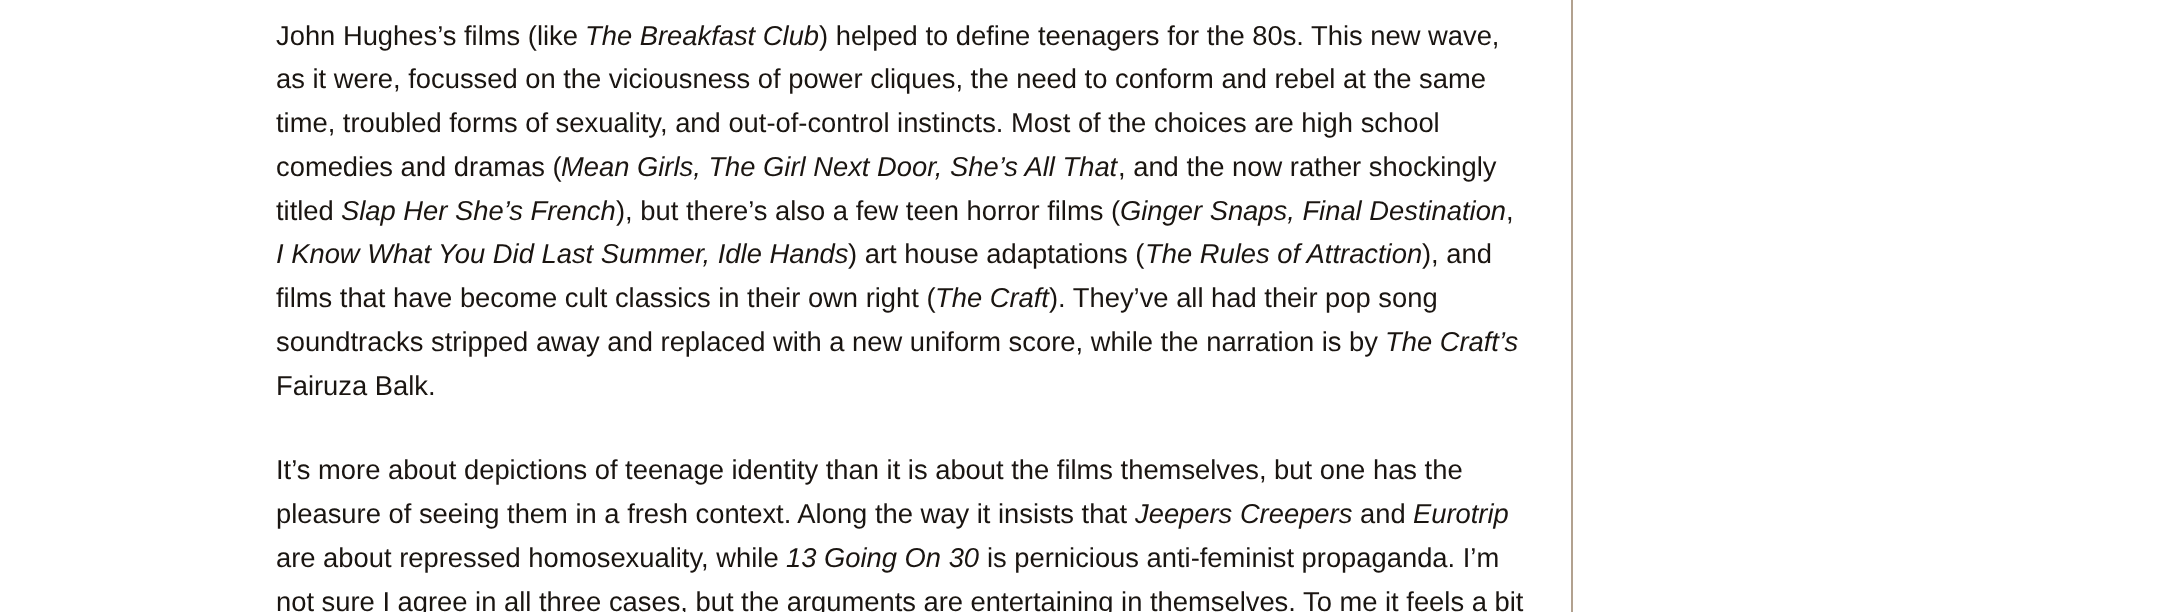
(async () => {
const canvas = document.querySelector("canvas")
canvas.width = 2181
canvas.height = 612
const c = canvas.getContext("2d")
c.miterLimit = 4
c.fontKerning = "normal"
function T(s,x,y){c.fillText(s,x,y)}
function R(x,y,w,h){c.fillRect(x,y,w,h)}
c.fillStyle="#fff"
R(0,0,2181,612)
c.fillStyle="#b2a18f"
R(1571,0,2,612)
c.font="27.35px Liberation Sans"
c.fillStyle="#1a1511"
T("John Hughes’s films (like",276,45)
c.font="italic 27.35px Liberation Sans"
T("The Breakfast Club",585,45)
c.font="27.35px Liberation Sans"
T(") helped to define teenagers for the 80s. This new wave,",819,45)
T("as it were, focussed on the viciousness of power cliques, the need to conform and rebel at the same",276,88)
T("time, troubled forms of sexuality, and out-of-control instincts. Most of the choices are high school",276,132)
T("comedies and dramas (",276,176)
c.font="italic 27.35px Liberation Sans"
T("Mean Girls, The Girl Next Door, She’s All That",561,176)
c.font="27.35px Liberation Sans"
T(", and the now rather shockingly",1118,176)
T("titled",276,220)
c.font="italic 27.35px Liberation Sans"
T("Slap Her She’s French",341,220)
c.font="27.35px Liberation Sans"
T("), but there’s also a few teen horror films (",616,220)
c.font="italic 27.35px Liberation Sans"
T("Ginger Snaps, Final Destination",1120,220)
c.font="27.35px Liberation Sans"
T(",",1506,220)
c.font="italic 27.35px Liberation Sans"
T("I Know What You Did Last Summer, Idle Hands",276,263)
c.font="27.35px Liberation Sans"
T(") art house adaptations (",848,263)
c.font="italic 27.35px Liberation Sans"
T("The Rules of Attraction",1145,263)
c.font="27.35px Liberation Sans"
T("), and",1422,263)
T("films that have become cult classics in their own right (",276,307)
c.font="italic 27.35px Liberation Sans"
T("The Craft",935,307)
c.font="27.35px Liberation Sans"
T("). They’ve all had their pop song",1049,307)
T("soundtracks stripped away and replaced with a new uniform score, while the narration is by",276,351)
c.font="italic 27.35px Liberation Sans"
T("The Craft’s",1385,351)
c.font="27.35px Liberation Sans"
T("Fairuza Balk.",276,395)
T("It’s more about depictions of teenage identity than it is about the films themselves, but one has the",276,479)
T("pleasure of seeing them in a fresh context. Along the way it insists that",276,523)
c.font="italic 27.35px Liberation Sans"
T("Jeepers Creepers",1135,523)
c.font="27.35px Liberation Sans"
T("and",1360,523)
c.font="italic 27.35px Liberation Sans"
T("Eurotrip",1413,523)
c.font="27.35px Liberation Sans"
T("are about repressed homosexuality, while",276,567)
c.font="italic 27.35px Liberation Sans"
T("13 Going On 30",786,567)
c.font="27.35px Liberation Sans"
T("is pernicious anti-feminist propaganda. I’m",987,567)
T("not sure I agree in all three cases, but the arguments are entertaining in themselves. To me it feels a bit",276,611)
})()
